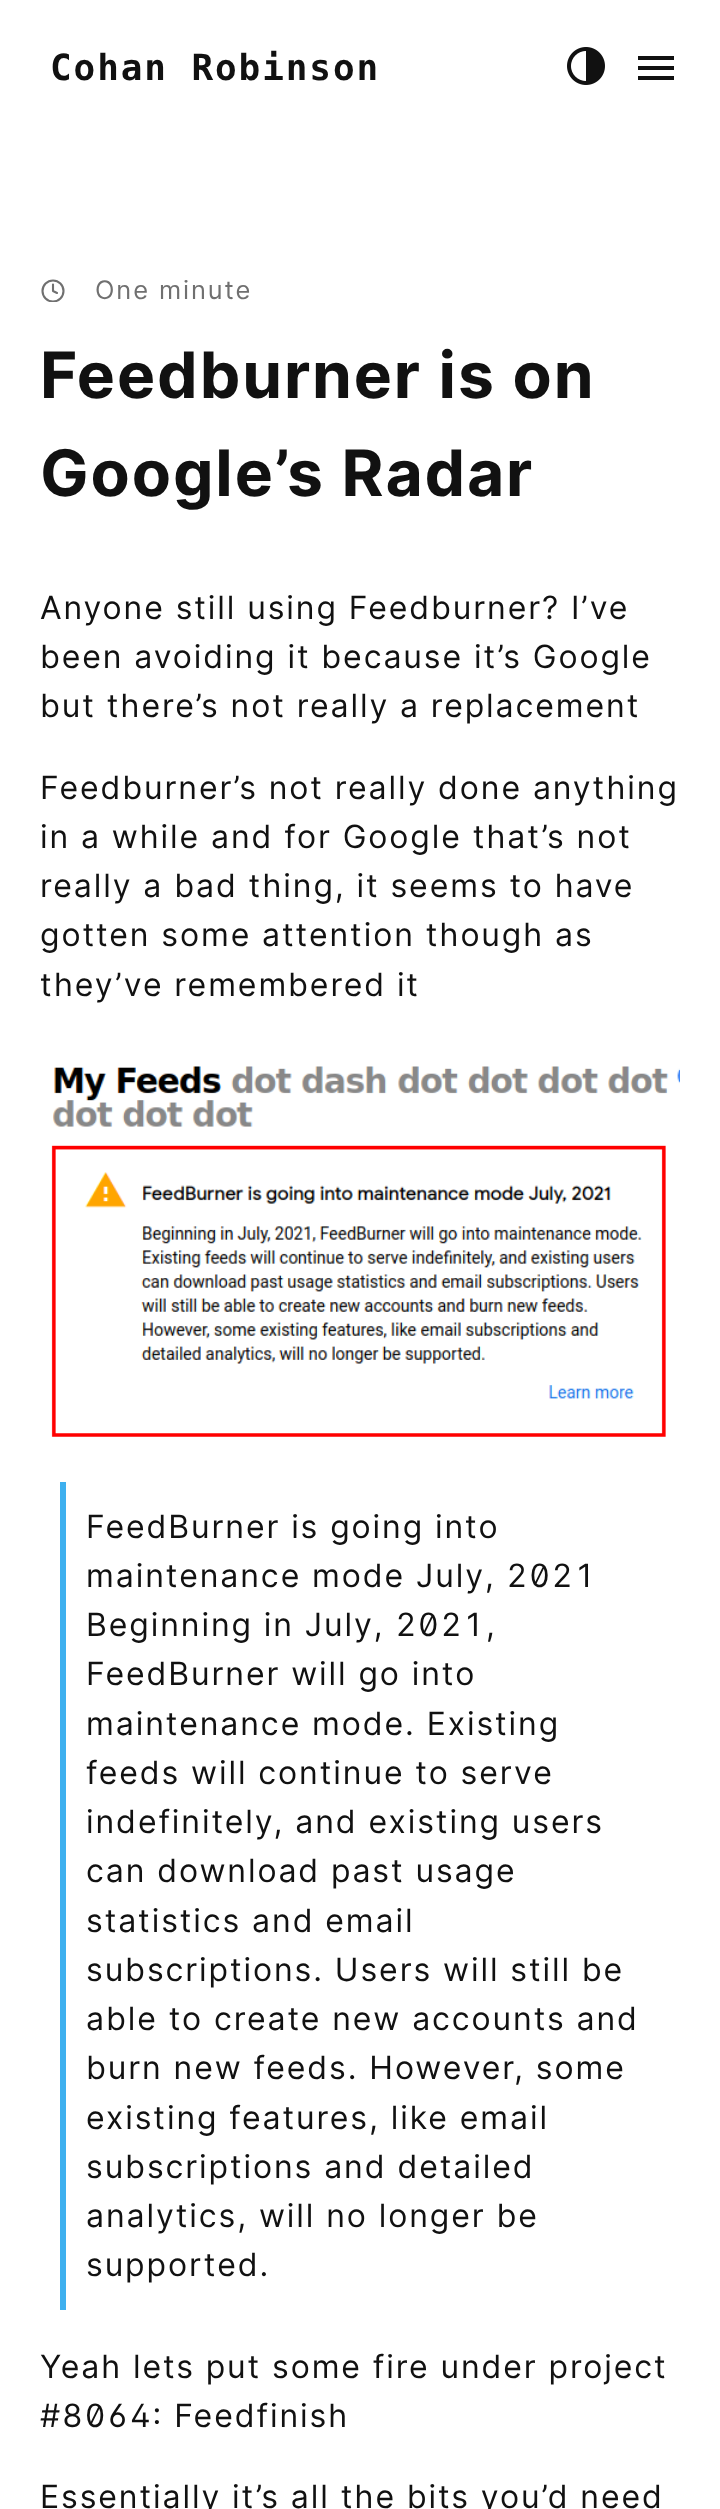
(async () => {
const canvas = document.querySelector("canvas")
canvas.width = 720
canvas.height = 2509
const c = canvas.getContext("2d")
c.miterLimit = 4
c.fontKerning = "normal"
function T(s,x,y){c.fillText(s,x,y)}
function R(x,y,w,h){c.fillRect(x,y,w,h)}
async function I(src,x,y,w,h){const img=new Image();img.src=src;await img.decode();c.drawImage(img,x,y,w,h)}
let path
c.fillStyle="#fff"
R(0,0,720,2509)
c.letterSpacing="1.9px"
c.font="bold 36px DejaVu Sans Mono"
c.fillStyle="#111"
T("Cohan Robinson",50,80)
await I("1.png",567,47,38,38)
path = new Path2D("M638 80h36v-4h-36zm0-10h36v-4h-36zm0-14v4h36v-4z")
c.fill(path)
c.save()
c.beginPath()
c.rect(40,278,26,24)
c.clip()
c.beginPath()
c.arc(53,291,10.5,0,7)
c.strokeStyle="#707070"
c.lineWidth=2.1
c.stroke()
c.restore()
path = new Path2D("M53 284.5v6.5l4 2")
c.strokeStyle="#707070"
c.lineWidth=2.1
c.lineCap="round"
c.lineJoin="round"
c.stroke(path)
c.font="25.5px Inter"
c.fillStyle="#707070"
T("One minute",95,299)
c.font="bold 64px Inter"
c.fillStyle="#111"
T("Feedburner is on",40,398)
T("Google’s Radar",40,496)
c.font="32px Inter"
T("Anyone still using Feedburner? I’ve",40,619)
T("been avoiding it because it’s Google",40,668)
T("but there’s not really a replacement",40,717)
T("Feedburner’s not really done anything",40,799)
T("in a while and for Google that’s not",40,848)
T("really a bad thing, it seems to have",40,897)
T("gotten some attention though as",40,946)
T("they’ve remembered it",40,996)
await I("2.png",51,1066,629,371)
c.fillStyle="#3eb0ef"
R(60,1482,6,828)
c.fillStyle="#111"
T("FeedBurner is going into",86,1538)
c.font="32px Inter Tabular"
T("maintenance mode July, 2021",86,1587)
T("Beginning in July, 2021,",86,1636)
c.font="32px Inter"
T("FeedBurner will go into",86,1685)
T("maintenance mode. Existing",86,1735)
T("feeds will continue to serve",86,1784)
T("indefinitely, and existing users",86,1833)
T("can download past usage",86,1882)
T("statistics and email",86,1932)
T("subscriptions. Users will still be",86,1981)
T("able to create new accounts and",86,2030)
T("burn new feeds. However, some",86,2079)
T("existing features, like email",86,2129)
T("subscriptions and detailed",86,2178)
T("analytics, will no longer be",86,2227)
T("supported.",86,2276)
T("Yeah lets put some fire under project",40,2378)
c.font="32px Inter Tabular"
T("#8064: Feedfinish",40,2427)
c.font="32px Inter"
T("Essentially it’s all the bits you’d need",40,2508)
})()
